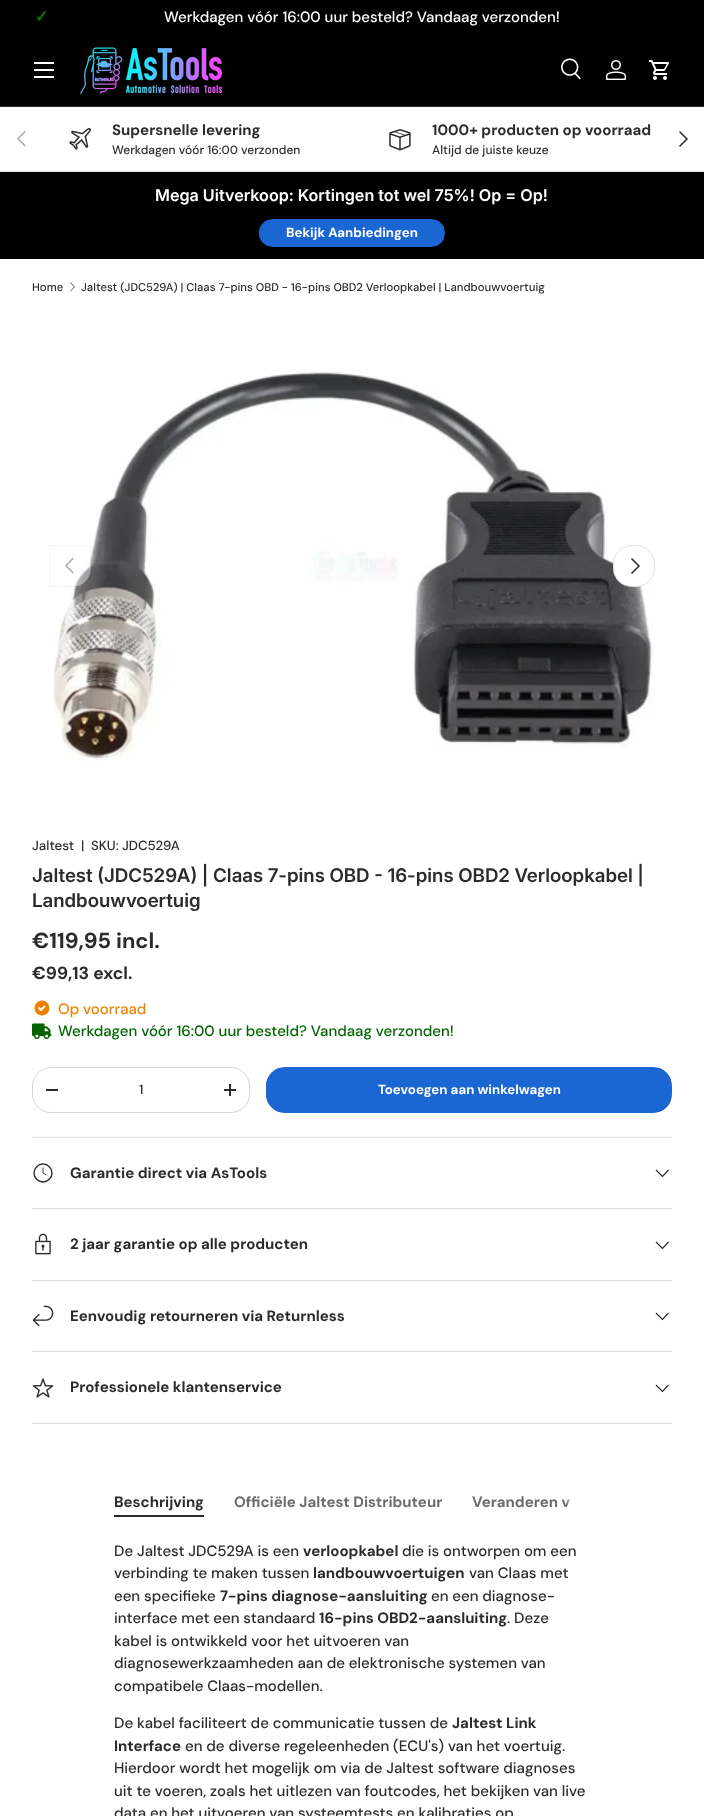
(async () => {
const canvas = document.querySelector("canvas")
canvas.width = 704
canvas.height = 1816
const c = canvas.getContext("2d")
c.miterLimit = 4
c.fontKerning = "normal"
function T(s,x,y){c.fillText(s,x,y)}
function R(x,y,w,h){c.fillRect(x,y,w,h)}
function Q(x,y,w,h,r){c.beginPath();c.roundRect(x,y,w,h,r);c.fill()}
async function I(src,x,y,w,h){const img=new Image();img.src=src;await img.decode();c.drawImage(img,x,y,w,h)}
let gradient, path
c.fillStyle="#fff"
R(0,0,704,1816)
c.fillStyle="#000"
R(0,0,704,106)
c.fillStyle="#262626"
R(0,106,704,1)
c.fillStyle="#fff"
R(34,62,20,2)
R(34,76,20,2)
R(34,69,20,2)
await I("1.png",80,47,143,47)
await I("2.png",561,58,20,22)
await I("3.png",606,60,20,20)
await I("4.png",649,60,20,20)
c.font="bold 16px DejaVu Sans"
c.fillStyle="#008000"
T("✓",35,22)
c.font="500 15px 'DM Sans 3'"
c.fillStyle="#fff"
T("Werkdagen vóór 16:00 uur besteld? Vandaag verzonden!",164,22)
c.fillStyle="#dfdfdf"
R(0,171,704,1)
await I("5.png",69,128,22,22)
c.font="bold 15px 'DM Sans 3'"
c.fillStyle="#2a2b2a"
T("Supersnelle levering",112,135)
c.font="500 12px 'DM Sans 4'"
T("Werkdagen vóór 16:00 verzonden",112,154)
await I("6.png",389,129,22,22)
c.font="bold 15px 'DM Sans 3'"
T("1000+ producten op voorraad",432,135)
c.font="500 12px 'DM Sans 4'"
T("Altijd de juiste keuze",432,154)
await I("7.png",17,130,9,17)
path = new Path2D("M679.5 131.5l7.5 7.5l-7.5 7.5")
c.strokeStyle="#2a2b2a"
c.lineWidth=1.5
c.stroke(path)
c.fillStyle="#000"
R(0,172,704,87)
c.font="600 16.25px Inter"
c.fillStyle="#fff"
T("Mega Uitverkoop: Kortingen tot wel 75%! Op = Op!",155,201)
c.save()
c.beginPath()
c.roundRect(259,219,186,28,14)
c.clip()
gradient = c.createLinearGradient(-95,167,431,299)
gradient.addColorStop(.6,"#4986db")
gradient.addColorStop(.6,"#1a66d2")
gradient.addColorStop(1,"#1a66d2")
c.fillStyle = gradient
R(259,220,185,26)
c.restore()
c.beginPath()
c.roundRect(259.5,219.5,185,27,13.5)
c.strokeStyle="#1a66d2"
c.lineWidth=1
c.stroke()
c.font="bold 13.25px 'DM Sans 4'"
T("Bekijk Aanbiedingen",286,237)
c.font="500 11.25px DM Sans"
c.fillStyle="#2a2b2a"
T("Home",32,291)
path = new Path2D("M70.5 282.5l4 4.5l-4 4")
c.strokeStyle="#2a2b2a"
c.lineWidth=0.8
c.stroke(path)
T("Jaltest (JDC529A) | Claas 7-pins OBD - 16-pins OBD2 Verloopkabel | Landbouwvoertuig",81,291)
await I("8.png",53,370,601,391)
c.fillStyle="#ffffff66"
Q(49,545,42,42,19)
c.strokeStyle="#2a2b2a0f"
c.lineWidth=1
c.strokeRect(49.5,545.5,41,41)
await I("7.png",65,557,9,17)
c.fillStyle="#fff"
Q(613,545,42,42,19)
c.beginPath()
c.roundRect(613.5,545.5,41,41,18.5)
c.strokeStyle="#2a2b2a26"
c.stroke()
path = new Path2D("M631.5 558.5l7.5 7.5l-7.5 7.5")
c.strokeStyle="#2a2b2a"
c.lineWidth=1.5
c.stroke(path)
c.font="500 13.25px 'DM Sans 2'"
c.fillStyle="#2a2b2a"
T("Jaltest",32,850)
T("|",81,850)
T("SKU: JDC529A",91,850)
c.font="600 18.85px 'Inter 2'"
T("Jaltest (JDC529A) | Claas 7-pins OBD - 16-pins OBD2 Verloopkabel |",32,882)
T("Landbouwvoertuig",32,907)
c.font="bold 21.75px DM Sans"
T("€119,95 incl.",32,948)
c.font="bold 17.5px 'DM Sans 2'"
T("€99,13 excl.",32,979)
c.font="500 15px 'DM Sans 3'"
c.fillStyle="#f08000"
T("Op voorraad",58,1014)
c.beginPath()
c.arc(42,1008,7.5,0,7)
c.fill()
path = new Path2D("M39 1008l2 2l3.5-3.5")
c.strokeStyle="#fff"
c.lineWidth=1.8
c.lineCap="round"
c.lineJoin="round"
c.stroke(path)
await I("9.png",32,1023,20,16)
c.fillStyle="#006400"
T("Werkdagen vóór 16:00 uur besteld? Vandaag verzonden!",58,1036)
c.beginPath()
c.roundRect(32.5,1067.5,217,45,18.5)
c.strokeStyle="#d4d5d4"
c.lineWidth=1
c.lineJoin="miter"
c.stroke()
c.fillStyle="#2a2b2a"
R(46,1089,12,2)
c.font="500 13.25px 'DM Sans 2'"
T("1",139,1094)
R(224,1089,12,2)
R(229,1084,2,12)
c.save()
c.beginPath()
c.roundRect(266,1067,406,46,19)
c.clip()
gradient = c.createLinearGradient(-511,946,641,1234)
gradient.addColorStop(.6,"#4986db")
gradient.addColorStop(.6,"#1a66d2")
gradient.addColorStop(1,"#1a66d2")
c.fillStyle = gradient
R(266,1068,405,44)
c.restore()
c.beginPath()
c.roundRect(266.5,1067.5,405,45,18.5)
c.strokeStyle="#1a66d2"
c.stroke()
c.font="bold 13.25px 'DM Sans 4'"
c.fillStyle="#fff"
T("Toevoegen aan winkelwagen",378,1094)
c.fillStyle="#dfdfdf"
R(32,1137,640,1)
R(32,1208,640,1)
c.beginPath()
c.arc(43,1173,9,0,7)
c.strokeStyle="#2a2b2a"
c.lineWidth=1.4
c.stroke()
path = new Path2D("M43 1167.5v5.5l3.5 2")
c.lineWidth=0.9
c.lineCap="butt"
c.stroke(path)
c.font="bold 15px 'DM Sans 3'"
c.fillStyle="#2a2b2a"
T("Garantie direct via AsTools",70,1178)
path = new Path2D("M668.5 1170l-6 6.5l-6.5-6.5")
c.lineWidth=1.2
c.stroke(path)
c.fillStyle="#dfdfdf"
R(32,1280,640,1)
await I("10.png",35,1233,16,22)
c.fillStyle="#2a2b2a"
T("2 jaar garantie op alle producten",70,1249)
path = new Path2D("M668.5 1242l-6 6.5l-6.5-6.5")
c.stroke(path)
c.fillStyle="#dfdfdf"
R(32,1351,640,1)
await I("11.png",32,1305,22,22)
c.fillStyle="#2a2b2a"
T("Eenvoudig retourneren via Returnless",70,1321)
path = new Path2D("M668.5 1313l-6 6.5l-6.5-6.5")
c.stroke(path)
c.fillStyle="#dfdfdf"
R(32,1423,640,1)
await I("12.png",32,1378,22,20)
c.fillStyle="#2a2b2a"
T("Professionele klantenservice",70,1392)
path = new Path2D("M668.5 1385l-6 6.5l-6.5-6.5")
c.stroke(path)
T("Beschrijving",114,1507)
R(114,1515,90,2)
c.fillStyle="#6a6b6a"
T("Officiële Jaltest Distributeur",234,1507)
T("Veranderen v",472,1507)
gradient = c.createLinearGradient(565,1502,590,1502)
gradient.addColorStop(0,"#ffffff00")
gradient.addColorStop(.5,"#fff")
c.fillStyle = gradient
R(565,1499,5,8)
c.font="500 15px 'DM Sans 3'"
c.fillStyle="#2a2b2a"
T("De Jaltest JDC529A is een",114,1556)
c.font="bold 15px 'DM Sans 3'"
T("verloopkabel",303,1556)
c.font="500 15px 'DM Sans 3'"
T("die is ontworpen om een",402,1556)
T("verbinding te maken tussen",114,1578)
c.font="bold 15px 'DM Sans 3'"
T("landbouwvoertuigen",313,1578)
c.font="500 15px 'DM Sans 3'"
T("van Claas met",469,1578)
T("een specifieke",114,1601)
c.font="bold 15px 'DM Sans 3'"
T("7-pins diagnose-aansluiting",220,1601)
c.font="500 15px 'DM Sans 3'"
T("en een diagnose-",431,1601)
T("interface met een standaard",114,1623)
c.font="bold 15px 'DM Sans 3'"
T("16-pins OBD2-aansluiting",319,1623)
c.font="500 15px 'DM Sans 3'"
T(". Deze",507,1623)
T("kabel is ontwikkeld voor het uitvoeren van",114,1646)
T("diagnosewerkzaamheden aan de elektronische systemen van",114,1668)
T("compatibele Claas-modellen.",114,1691)
T("De kabel faciliteert de communicatie tussen de",114,1728)
c.font="bold 15px 'DM Sans 3'"
T("Jaltest Link",452,1728)
T("Interface",114,1751)
c.font="500 15px 'DM Sans 3'"
T("en de diverse regeleenheden (ECU's) van het voertuig.",185,1751)
T("Hierdoor wordt het mogelijk om via de Jaltest software diagnoses",114,1773)
T("uit te voeren, zoals het uitlezen van foutcodes, het bekijken van live",114,1796)
T("data en het uitvoeren van systeemtests en kalibraties op",114,1818)
})()
